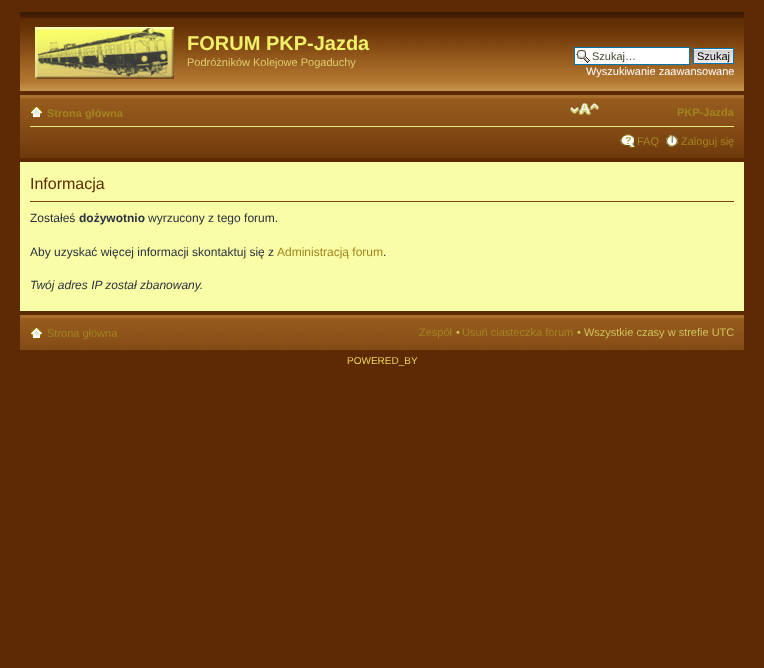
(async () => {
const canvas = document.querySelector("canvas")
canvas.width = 764
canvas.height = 668
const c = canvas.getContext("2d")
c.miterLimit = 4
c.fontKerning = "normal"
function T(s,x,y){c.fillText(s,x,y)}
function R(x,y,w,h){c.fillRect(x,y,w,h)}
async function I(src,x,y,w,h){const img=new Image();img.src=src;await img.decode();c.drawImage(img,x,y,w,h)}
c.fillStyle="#5d2a03"
R(0,0,764,668)
await I("1.png",20,12,724,79)
await I("2.png",35,27,139,52)
c.font="bold 20px Liberation Sans"
c.fillStyle="#f0f169"
T("FORUM PKP-Jazda",187,50)
c.font="11px Liberation Sans"
c.fillStyle="#ddcd6d"
T("Podróżników Kolejowe Pogaduchy",187,66)
c.fillStyle="#fff"
R(575,48,114,16)
await I("3.png",576,50,14,13)
c.strokeStyle="#0075b0"
c.strokeRect(574.5,47.5,115,17)
c.fillStyle="#48492c"
T("Szukaj…",592,60)
await I("4.png",694,49,39,14)
c.strokeRect(693.5,48.5,40,15)
c.fillStyle="#000"
T("Szukaj",697,60)
c.fillStyle="#fff"
T("Wyszukiwanie zaawansowane",586,75)
await I("5.png",20,95,724,63)
c.fillStyle="#eeec79"
R(30,126,704,1)
await I("6.png",30,106,13,12)
c.font="bold 11px Liberation Sans"
c.fillStyle="#a28520"
T("Strona główna",47,117)
await I("7.png",570,103,29,12)
T("PKP-Jazda",677,116)
await I("8.png",620,134,16,14)
c.font="11px Liberation Sans"
T("FAQ",637,145)
await I("9.png",666,135,12,12)
T("Zaloguj się",681,145)
c.fillStyle="#f9fda6"
R(20,162,724,149)
c.fillStyle="#7a4610"
R(30,201,704,1)
c.font="16px Liberation Sans"
c.fillStyle="#5d2a03"
T("Informacja",30,189)
c.font="12px Liberation Sans"
c.fillStyle="#28313f"
T("Zostałeś",30,222)
c.font="bold 12px Liberation Sans"
T("dożywotnio",79,222)
c.font="12px Liberation Sans"
T("wyrzucony z tego forum.",148,222)
T("Aby uzyskać więcej informacji skontaktuj się z",30,256)
c.fillStyle="#a28520"
T("Administracją forum",277,256)
c.fillStyle="#28313f"
T(".",383,256)
c.font="italic 12px Liberation Sans"
T("Twój adres IP został zbanowany.",30,289)
await I("10.png",20,315,724,35)
await I("11.png",30,327,13,12)
c.font="11px Liberation Sans"
c.fillStyle="#a28520"
T("Strona główna",47,337)
T("Zespół",419,336)
c.fillStyle="#cfc25a"
T("•",456,336)
c.fillStyle="#a28520"
T("Usuń ciasteczka forum",462,336)
c.fillStyle="#cfc25a"
T("• Wszystkie czasy w strefie UTC",577,336)
c.font="10px Liberation Sans"
c.fillStyle="#ecd356"
T("POWERED_BY",347,364)
})()
